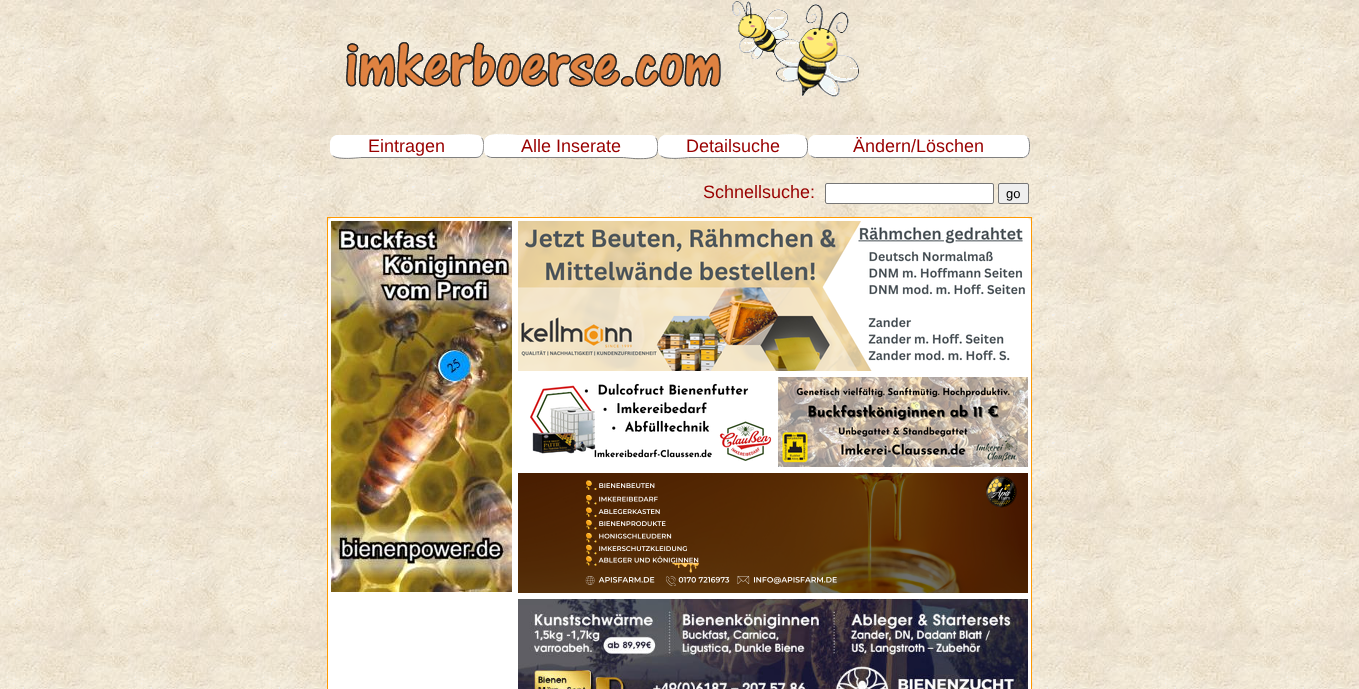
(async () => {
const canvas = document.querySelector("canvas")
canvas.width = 1359
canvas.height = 689
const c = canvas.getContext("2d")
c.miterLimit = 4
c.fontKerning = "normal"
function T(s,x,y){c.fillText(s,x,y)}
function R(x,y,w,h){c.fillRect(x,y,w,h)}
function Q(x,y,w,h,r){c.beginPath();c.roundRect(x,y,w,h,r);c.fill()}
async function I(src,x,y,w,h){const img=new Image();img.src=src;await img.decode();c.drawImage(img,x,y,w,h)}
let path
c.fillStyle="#fff"
R(0,0,1359,689)
await I("1.png",0,0,1359,689)
await I("2.png",346,1,513,96)
Q(330,135,154,23,8)
path = new Path2D("M481.5 137.5c2.5 3 2 6.5 2 9.5c0 5-1.5 10.5-7.5 10.5h-115c-.5 0-23 3-28.5-2")
c.strokeStyle="#808080"
c.stroke(path)
path = new Path2D("M332.5 155.5c-2.5-3-2-6.5-2-9.5c0-5 1.5-10.5 7.5-10.5h115c.5 0 23-3 28.5 2")
c.strokeStyle="#fff"
c.stroke(path)
c.font="18px Liberation Sans"
c.fillStyle="#900"
T("Eintragen",368,152)
c.fillStyle="#fff"
Q(484,135,174,23,8)
path = new Path2D("M655.5 137.5c3 3.5 3 14 .5 17.5c-5.5 6.5-31.5 2.5-32.5 2.5h-131.5c-2 0-4-1-5.5-2")
c.strokeStyle="#808080"
c.stroke(path)
path = new Path2D("M486.5 155.5c-3-3.5-3-14-.5-17.5c5.5-6.5 31.5-2.5 32.5-2.5h131.5c2 0 4 1 5.5 2")
c.strokeStyle="#fff"
c.stroke(path)
c.fillStyle="#900"
T("Alle Inserate",521,152)
c.fillStyle="#fff"
Q(658,135,150,23,8)
path = new Path2D("M805.5 137.5c2.5 3 2 7.5 2 11c0 4.5-2.5 9-7.5 9h-111.5c-1 0-22.5 3-28-2")
c.strokeStyle="#808080"
c.stroke(path)
path = new Path2D("M660.5 155.5c-2.5-3-2-7.5-2-11c0-4.5 2.5-9 7.5-9h111.5c1 0 22.5-3 28 2")
c.strokeStyle="#fff"
c.stroke(path)
c.fillStyle="#900"
T("Detailsuche",686,152)
c.fillStyle="#fff"
Q(808,135,222,23,8)
path = new Path2D("M1027.5 137.5c2 2.5 2 5.5 2 8.5c0 4.5 0 10-6 11.5h-208c-2 0-3.5-1-5-2")
c.strokeStyle="#808080"
c.stroke(path)
path = new Path2D("M810.5 155.5c-2-2.5-2-5.5-2-8.5c0-4.5 0-10 6-11.5h208c2 0 3.5 1 5 2")
c.strokeStyle="#fff"
c.stroke(path)
c.fillStyle="#900"
T("Ändern/Löschen",853,152)
T("Schnellsuche:",703,198)
c.fillStyle="#fff"
c.beginPath()
c.roundRect(825.5,183.5,168,20,1.5)
c.fill()
c.strokeStyle="#767676"
c.stroke()
c.fillStyle="#efefef"
c.beginPath()
c.roundRect(998.5,183.5,30,20,1.5)
c.fill()
c.stroke()
c.font="13px Liberation Sans"
c.fillStyle="#000"
T("go",1006,198)
c.fillStyle="#fff"
Q(327,217,705,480,8)
c.fillStyle="#f90"
R(327,217,705,1)
R(1031,217,1,472)
R(327,217,1,472)
await I("3.png",331,221,181,371)
await I("4.png",518,221,507,150)
await I("5.png",530,383,242,78)
await I("6.png",778,377,250,90)
await I("7.png",518,473,510,120)
await I("8.png",518,599,510,90)
})()
